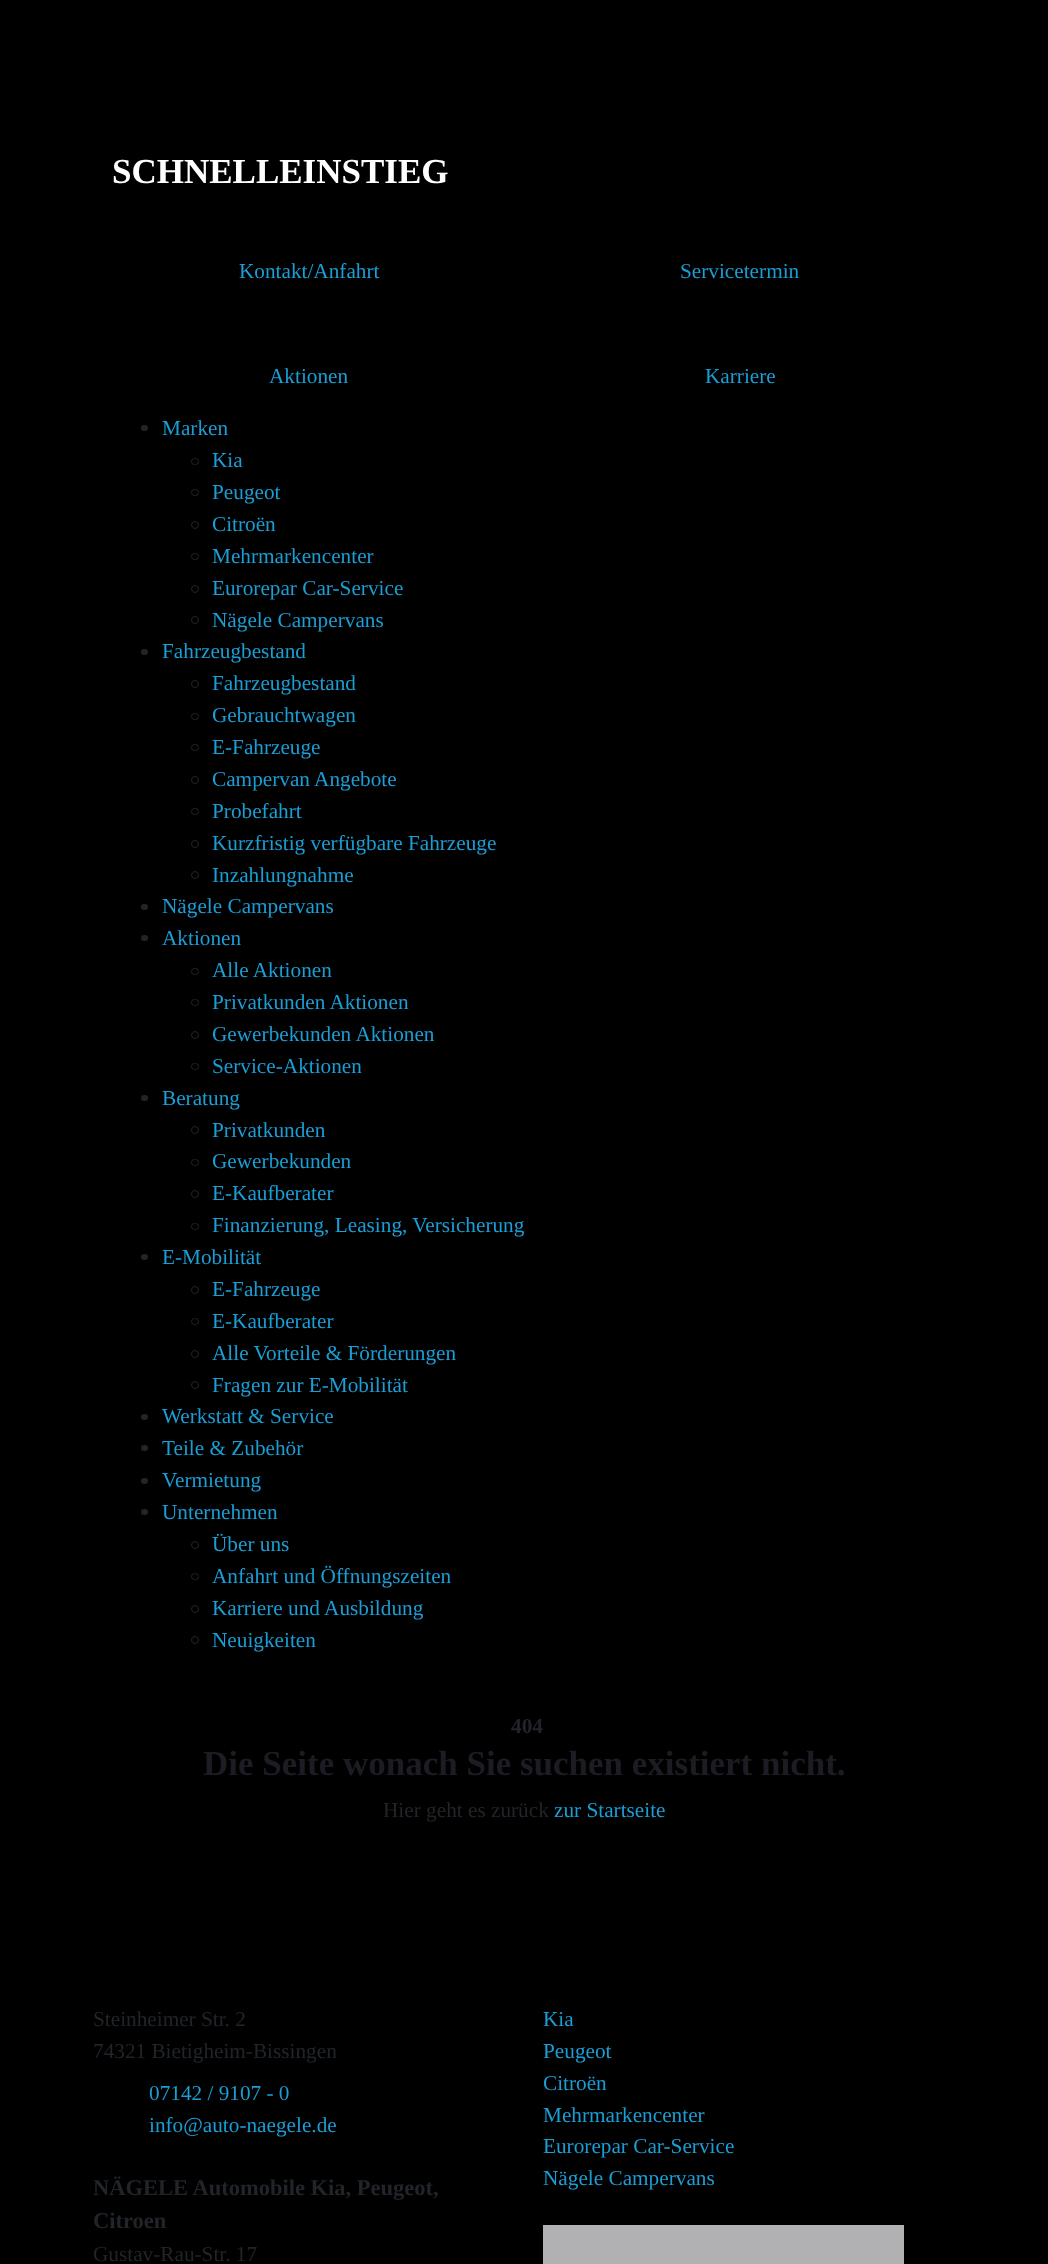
(async () => {
const canvas = document.querySelector("canvas")
canvas.width = 1048
canvas.height = 2264
const c = canvas.getContext("2d")
c.miterLimit = 4
c.fontKerning = "normal"
function T(s,x,y){c.fillText(s,x,y)}
function R(x,y,w,h){c.fillRect(x,y,w,h)}
function Q(x,y,w,h,r){c.beginPath();c.roundRect(x,y,w,h,r);c.fill()}
c.fillStyle="#000"
R(0,0,1048,2264)
c.font="bold 35px Liberation Serif"
c.fillStyle="#fff"
T("SCHNELLEINSTIEG",112,183)
c.font="21.25px Liberation Serif"
c.fillStyle="#1a9ed6"
T("Kontakt/Anfahrt",239,278)
T("Servicetermin",680,278)
T("Aktionen",269,383)
T("Karriere",705,383)
c.fillStyle="#212529"
Q(141,425,7,6,3)
c.fillStyle="#1a9ed6"
T("Marken",162,435)
c.beginPath()
c.roundRect(191.5,458.5,7,6,3)
c.strokeStyle="#212529"
c.stroke()
T("Kia",212,467)
c.beginPath()
c.roundRect(191.5,489.5,7,6,3)
c.stroke()
T("Peugeot",212,499)
c.beginPath()
c.arc(195,525,3.5,0,7)
c.stroke()
T("Citroën",212,531)
c.beginPath()
c.roundRect(191.5,553.5,7,6,3)
c.stroke()
T("Mehrmarkencenter",212,563)
c.beginPath()
c.arc(195,589,3.5,0,7)
c.stroke()
T("Eurorepar Car-Service",212,595)
c.beginPath()
c.arc(195,620,3.5,0,7)
c.stroke()
T("Nägele Campervans",212,627)
c.fillStyle="#212529"
Q(141,649,7,6,3)
c.fillStyle="#1a9ed6"
T("Fahrzeugbestand",162,658)
c.beginPath()
c.arc(195,684,3.5,0,7)
c.stroke()
T("Fahrzeugbestand",212,690)
c.beginPath()
c.roundRect(191.5,713.5,7,6,3)
c.stroke()
T("Gebrauchtwagen",212,722)
c.beginPath()
c.roundRect(191.5,744.5,7,6,3)
c.stroke()
T("E-Fahrzeuge",212,754)
c.beginPath()
c.arc(195,780,3.5,0,7)
c.stroke()
T("Campervan Angebote",212,786)
c.beginPath()
c.roundRect(191.5,808.5,7,6,3)
c.stroke()
T("Probefahrt",212,818)
c.beginPath()
c.arc(195,844,3.5,0,7)
c.stroke()
T("Kurzfristig verfügbare Fahrzeuge",212,850)
c.beginPath()
c.arc(195,875,3.5,0,7)
c.stroke()
T("Inzahlungnahme",212,882)
c.fillStyle="#212529"
Q(141,904,7,6,3)
c.fillStyle="#1a9ed6"
T("Nägele Campervans",162,913)
c.fillStyle="#212529"
Q(141,935,7,6,3)
c.fillStyle="#1a9ed6"
T("Aktionen",162,945)
c.beginPath()
c.roundRect(191.5,968.5,7,6,3)
c.stroke()
T("Alle Aktionen",212,977)
c.beginPath()
c.roundRect(191.5,999.5,7,6,3)
c.stroke()
T("Privatkunden Aktionen",212,1009)
c.beginPath()
c.arc(195,1035,3.5,0,7)
c.stroke()
T("Gewerbekunden Aktionen",212,1041)
c.beginPath()
c.roundRect(191.5,1063.5,7,6,3)
c.stroke()
T("Service-Aktionen",212,1073)
c.fillStyle="#212529"
Q(141,1095,7,6,3)
c.fillStyle="#1a9ed6"
T("Beratung",162,1105)
c.beginPath()
c.arc(195,1130,3.5,0,7)
c.stroke()
T("Privatkunden",212,1137)
c.beginPath()
c.roundRect(191.5,1159.5,7,6,3)
c.stroke()
T("Gewerbekunden",212,1168)
c.beginPath()
c.arc(195,1194,3.5,0,7)
c.stroke()
T("E-Kaufberater",212,1200)
c.beginPath()
c.roundRect(191.5,1223.5,7,6,3)
c.stroke()
T("Finanzierung, Leasing, Versicherung",212,1232)
c.fillStyle="#212529"
Q(141,1254,7,6,3)
c.fillStyle="#1a9ed6"
T("E-Mobilität",162,1264)
c.beginPath()
c.arc(195,1290,3.5,0,7)
c.stroke()
T("E-Fahrzeuge",212,1296)
c.beginPath()
c.roundRect(191.5,1318.5,7,6,3)
c.stroke()
T("E-Kaufberater",212,1328)
c.beginPath()
c.arc(195,1354,3.5,0,7)
c.stroke()
T("Alle Vorteile & Förderungen",212,1360)
c.beginPath()
c.arc(195,1385,3.5,0,7)
c.stroke()
T("Fragen zur E-Mobilität",212,1392)
c.fillStyle="#212529"
Q(141,1414,7,6,3)
c.fillStyle="#1a9ed6"
T("Werkstatt & Service",162,1423)
c.fillStyle="#212529"
Q(141,1445,7,6,3)
c.fillStyle="#1a9ed6"
T("Teile & Zubehör",162,1455)
c.fillStyle="#212529"
Q(141,1478,7,6,3)
c.fillStyle="#1a9ed6"
T("Vermietung",162,1487)
c.fillStyle="#212529"
Q(141,1509,7,6,3)
c.fillStyle="#1a9ed6"
T("Unternehmen",162,1519)
c.beginPath()
c.arc(195,1545,3.5,0,7)
c.stroke()
T("Über uns",212,1551)
c.beginPath()
c.roundRect(191.5,1573.5,7,6,3)
c.stroke()
T("Anfahrt und Öffnungszeiten",212,1583)
c.beginPath()
c.arc(195,1609,3.5,0,7)
c.stroke()
T("Karriere und Ausbildung",212,1615)
c.beginPath()
c.arc(195,1640,3.5,0,7)
c.stroke()
T("Neuigkeiten",212,1647)
c.font="bold 21.25px Liberation Serif"
c.fillStyle="#212529"
T("404",511,1733)
c.font="bold 35px Liberation Serif"
c.fillStyle="#1c1c24"
T("Die Seite wonach Sie suchen existiert nicht.",203,1775)
c.font="21.25px Liberation Serif"
c.fillStyle="#212529"
T("Hier geht es zurück",383,1817)
c.fillStyle="#1a9ed6"
T("zur Startseite",554,1817)
c.fillStyle="#212529"
T("Steinheimer Str. 2",93,2026)
T("74321 Bietigheim-Bissingen",93,2058)
c.fillStyle="#1a9ed6"
T("07142 / 9107 - 0",149,2100)
T("info@auto-naegele.de",149,2132)
c.font="bold 22.5px Liberation Serif"
c.fillStyle="#212529"
T("NÄGELE Automobile Kia, Peugeot,",93,2195)
T("Citroen",93,2228)
c.font="21.25px Liberation Serif"
T("Gustav-Rau-Str. 17",93,2261)
c.fillStyle="#1a9ed6"
T("Kia",543,2026)
T("Peugeot",543,2058)
T("Citroën",543,2090)
T("Mehrmarkencenter",543,2122)
T("Eurorepar Car-Service",543,2153)
T("Nägele Campervans",543,2185)
c.fillStyle="#b1b0b3"
R(543,2225,361,39)
})()
